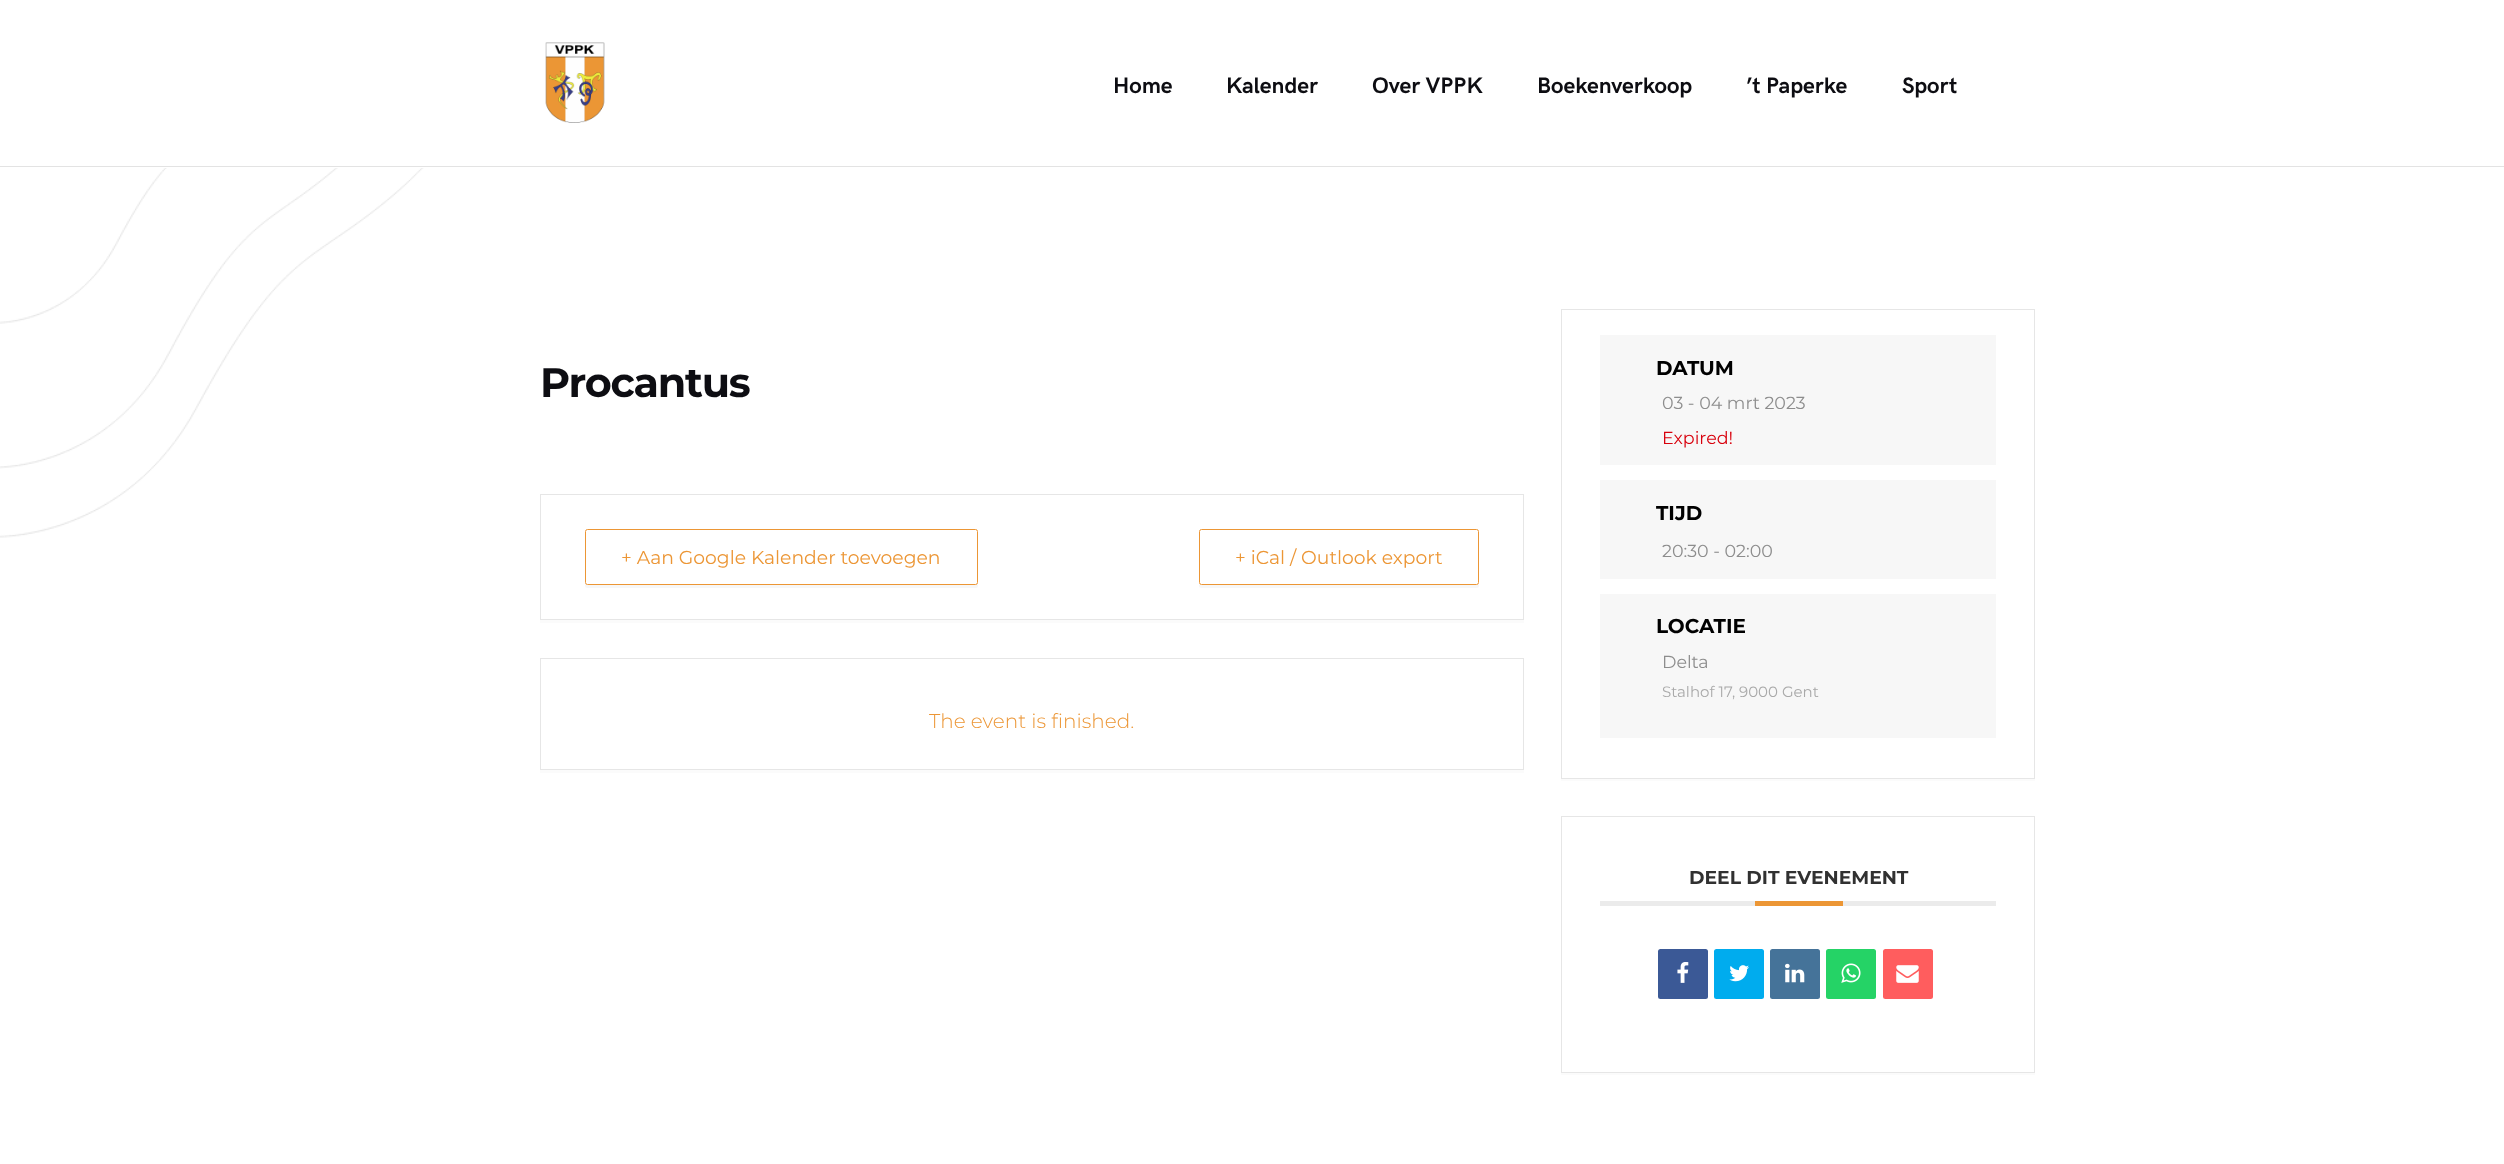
(async () => {
const canvas = document.querySelector("canvas")
canvas.width = 2504
canvas.height = 1164
const c = canvas.getContext("2d")
c.miterLimit = 4
c.fontKerning = "normal"
function T(s,x,y){c.fillText(s,x,y)}
function R(x,y,w,h){c.fillRect(x,y,w,h)}
function Q(x,y,w,h,r){c.beginPath();c.roundRect(x,y,w,h,r);c.fill()}
async function I(src,x,y,w,h){const img=new Image();img.src=src;await img.decode();c.drawImage(img,x,y,w,h)}
let path
c.fillStyle="#fff"
R(0,0,2504,1164)
await I("1.png",0,168,424,370)
c.fillStyle="#e3e3e3"
R(0,166,2504,1)
await I("2.png",545,42,60,81)
c.font="bold 22.5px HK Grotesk"
c.fillStyle="#0d0d12"
T("Home",1113,93)
T("Kalender",1226,93)
T("Over VPPK",1372,93)
T("Boekenverkoop",1537,93)
T("’t Paperke",1746,93)
T("Sport",1902,93)
c.letterSpacing="-1.25px"
c.font="bold 41.25px Montserrat"
T("Procantus",540,397)
c.fillStyle="#fbfbfb"
path = new Path2D("M540 620v3h984v-127v124z")
c.fill(path)
c.strokeStyle="#e6e6e6"
c.strokeRect(540.5,494.5,983,125)
c.fillStyle="#f7f7f7"
path = new Path2D("M585 582v4c0 1 1 2 3 2h388c1 0 2-1 2-2v-52v-2v50c0 2-2 3-3 3h-387c-2 0-3-1-3-3z")
c.fill(path)
c.fillStyle="#fff"
c.beginPath()
c.roundRect(585.5,529.5,392,55,2)
c.fill()
c.strokeStyle="#ec9635"
c.stroke()
c.letterSpacing="0px"
c.font="18.75px Montserrat"
c.fillStyle="#ec9635"
T("+ Aan Google Kalender toevoegen",621,564)
c.fillStyle="#f7f7f7"
path = new Path2D("M1199 584v2c0 1 1 2 3 2h274c2 0 3-1 3-2v-54v50c0 2-1 3-3 3h-275c-1 0-2-1-2-1z")
c.fill(path)
c.beginPath()
c.roundRect(1199.5,529.5,279,55,2)
c.stroke()
c.fillStyle="#ec9635"
T("+ iCal / Outlook export",1235,564)
c.fillStyle="#fbfbfb"
path = new Path2D("M540 770v3h984v-113v110z")
c.fill(path)
c.strokeStyle="#e6e6e6"
c.strokeRect(540.5,658.5,983,111)
c.font="300 20px Montserrat"
c.fillStyle="#ec9635"
T("The event is finished.",929,728)
c.fillStyle="#fbfbfb"
path = new Path2D("M1561 311v470h474v-2h-474z")
c.fill(path)
c.strokeRect(1561.5,309.5,473,469)
c.fillStyle="#f7f7f7"
R(1600,335,396,130)
c.font="bold 20px Montserrat"
c.fillStyle="#000"
T("DATUM",1656,375)
c.font="17.5px Montserrat"
c.fillStyle="#8d8d8d"
T("03 - 04 mrt 2023",1662,409)
c.fillStyle="#d8000c"
T("Expired!",1662,444)
c.fillStyle="#f7f7f7"
R(1600,480,396,99)
c.font="bold 20px Montserrat"
c.fillStyle="#000"
T("TIJD",1656,520)
c.font="17.5px Montserrat"
c.fillStyle="#8d8d8d"
T("20:30 - 02:00",1662,557)
c.fillStyle="#f7f7f7"
R(1600,594,396,144)
c.font="bold 20px Montserrat"
c.fillStyle="#000"
T("LOCATIE",1656,633)
c.font="17.5px Montserrat"
c.fillStyle="#8d8d8d"
T("Delta",1662,668)
c.font="15px Montserrat"
c.fillStyle="#a9a9a9"
T("Stalhof 17, 9000 Gent",1662,697)
c.fillStyle="#fbfbfb"
path = new Path2D("M1561 819v256h474v-3h-474z")
c.fill(path)
c.strokeRect(1561.5,816.5,473,256)
c.fillStyle="#ebebeb"
R(1600,901,396,5)
c.font="bold 18.75px Montserrat"
c.fillStyle="#313131"
T("DEEL DIT EVENEMENT",1689,884)
c.fillStyle="#ec9635"
R(1755,901,88,5)
c.fillStyle="#3b5996"
Q(1658,949,50,50,2.5)
await I("3.png",1677,962,12,21)
c.fillStyle="#00acee"
Q(1714,949,50,50,2.5)
await I("4.png",1729,965,20,17)
c.fillStyle="#457399"
Q(1770,949,50,50,2.5)
await I("5.png",1785,963,20,20)
c.fillStyle="#25d366"
Q(1826,949,50,50,2.5)
await I("6.png",1841,963,20,20)
c.fillStyle="#ff5d5e"
Q(1883,949,50,50,2.5)
await I("7.png",1896,965,23,18)
})()
